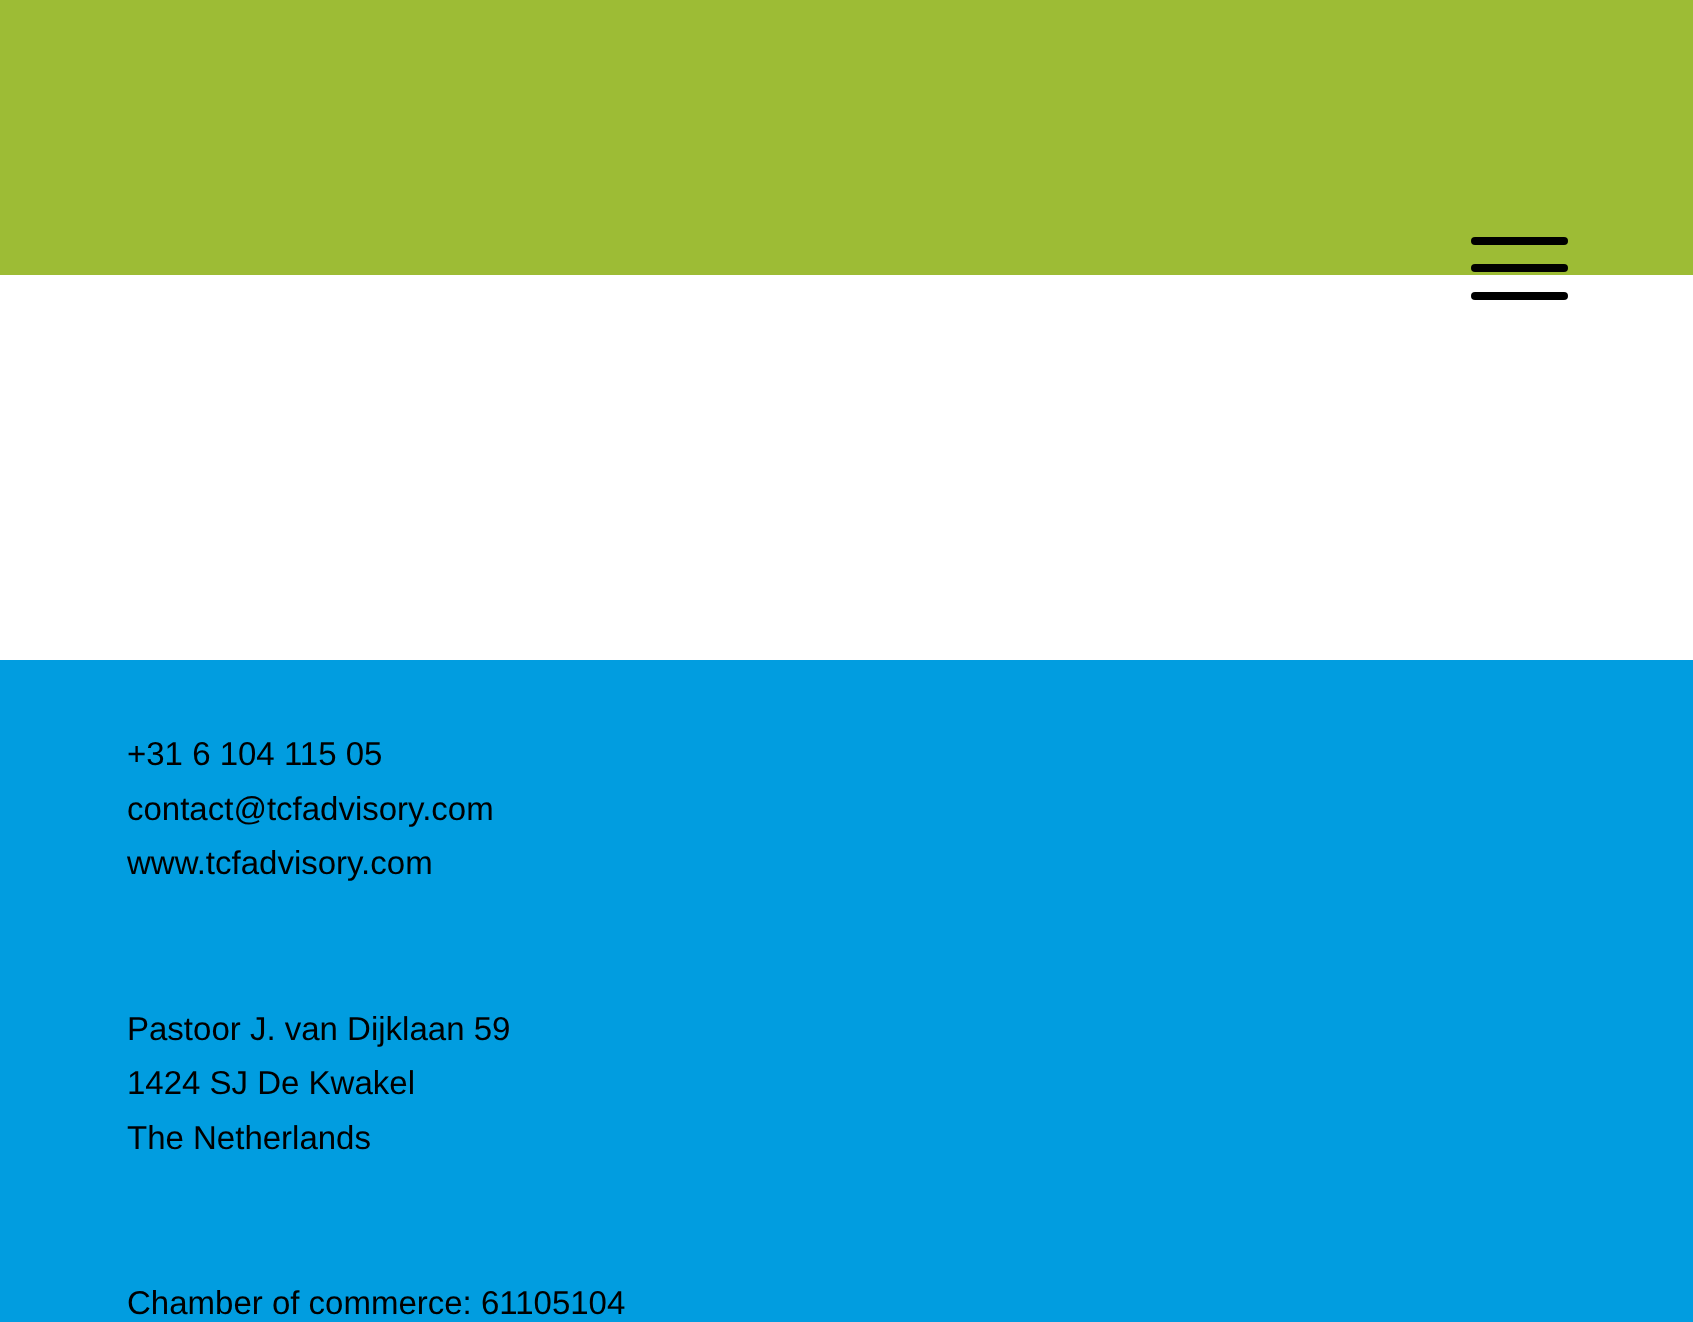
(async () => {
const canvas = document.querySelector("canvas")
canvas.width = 1693
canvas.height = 1322
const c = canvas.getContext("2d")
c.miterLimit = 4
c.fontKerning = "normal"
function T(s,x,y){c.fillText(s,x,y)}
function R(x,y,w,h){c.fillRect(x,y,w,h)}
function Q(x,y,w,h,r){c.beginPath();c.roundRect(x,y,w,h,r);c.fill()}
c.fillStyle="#fff"
R(0,0,1693,1322)
c.fillStyle="#9dbc35"
R(0,0,1693,275)
c.fillStyle="#000"
Q(1471,264,97,8,4)
Q(1471,237,97,8,4)
Q(1471,292,97,8,4)
c.fillStyle="#019de0"
R(0,660,1693,662)
c.font="33px Liberation Sans"
c.fillStyle="#000"
T("+31 6 104 115 05",127,765)
T("contact@tcfadvisory.com",127,820)
T("www.tcfadvisory.com",127,874)
T("Pastoor J. van Dijklaan 59",127,1040)
T("1424 SJ De Kwakel",127,1094)
T("The Netherlands",127,1149)
T("Chamber of commerce: 61105104",127,1314)
})()
